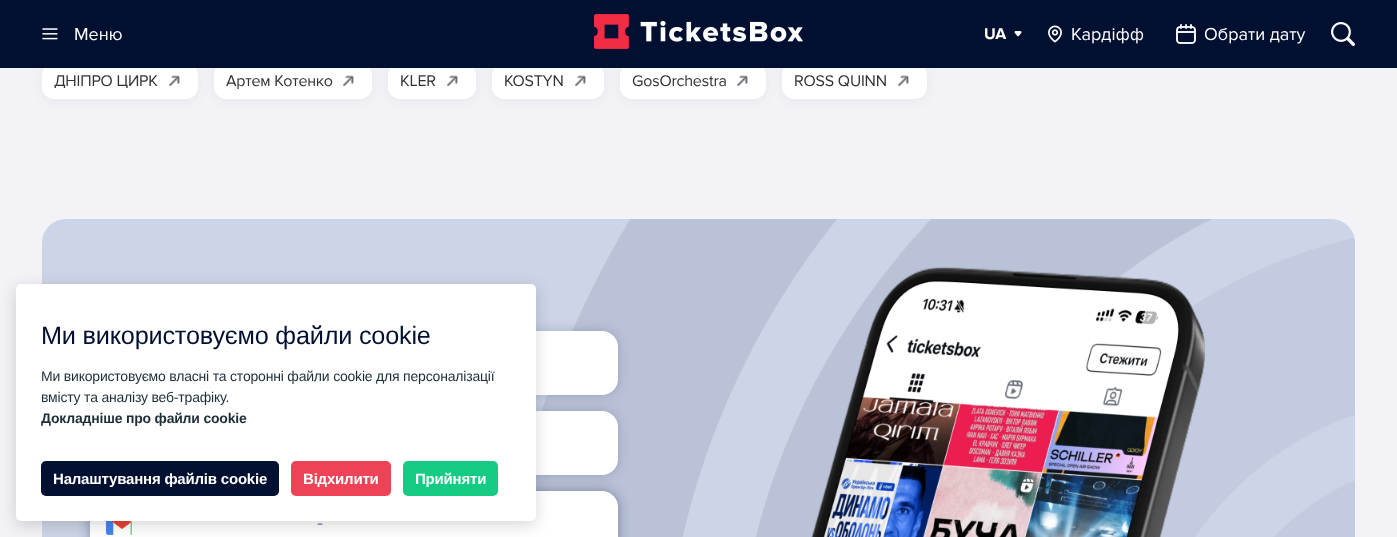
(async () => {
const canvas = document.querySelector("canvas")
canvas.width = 1397
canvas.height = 537
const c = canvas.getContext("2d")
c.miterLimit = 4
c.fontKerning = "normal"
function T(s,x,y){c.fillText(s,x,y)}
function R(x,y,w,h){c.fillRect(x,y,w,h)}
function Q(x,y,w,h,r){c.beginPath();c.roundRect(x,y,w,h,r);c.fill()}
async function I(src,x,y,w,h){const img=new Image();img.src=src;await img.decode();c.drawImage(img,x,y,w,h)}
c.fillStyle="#f2f2f7"
R(0,0,1397,537)
c.fillStyle="#0000000d"
c.filter="blur(6px)"
c.beginPath()
c.roundRect(42,65,156,36,12)
c.fill()
c.filter="none"
c.fillStyle="#fff"
Q(42,63,156,36,12)
c.fillStyle="#0000000d"
c.filter="blur(6px)"
c.beginPath()
c.roundRect(214,65,158,36,12)
c.fill()
c.filter="none"
c.fillStyle="#fff"
Q(214,63,158,36,12)
c.fillStyle="#0000000d"
c.filter="blur(6px)"
c.beginPath()
c.roundRect(388,65,88,36,12)
c.fill()
c.filter="none"
c.fillStyle="#fff"
Q(388,63,88,36,12)
c.fillStyle="#0000000d"
c.filter="blur(6px)"
c.beginPath()
c.roundRect(492,65,112,36,12)
c.fill()
c.filter="none"
c.fillStyle="#fff"
Q(492,63,112,36,12)
c.fillStyle="#0000000d"
c.filter="blur(6px)"
c.beginPath()
c.roundRect(620,65,146,36,12)
c.fill()
c.filter="none"
c.fillStyle="#fff"
Q(620,63,146,36,12)
c.fillStyle="#0000000d"
c.filter="blur(6px)"
c.beginPath()
c.roundRect(782,65,145,36,12)
c.fill()
c.filter="none"
c.fillStyle="#fff"
Q(782,63,145,36,12)
c.fillStyle="#011031"
R(0,0,1397,68)
await I("1.png",594,14,209,35)
await I("2.png",42,28,16,12)
c.font="18px Proxima Nova"
c.fillStyle="#fff"
T("Меню",74,40)
c.font="bold 16px Proxima Nova"
T("UA",984,39)
await I("3.png",1014,31,8,6)
await I("4.png",1048,25,14,18)
c.font="18px Proxima Nova"
T("Кардіфф",1071,40)
await I("5.png",1176,24,20,20)
T("Обрати дату",1204,40)
await I("6.png",1331,22,24,24)
c.letterSpacing="-0.2px"
c.font="16px Proxima Nova"
c.fillStyle="#323234"
T("ДНІПРО ЦИРК",54,86)
await I("7.png",169,75,11,12)
T("Артем Котенко",226,86)
await I("7.png",343,75,11,12)
T("KLER",400,86)
await I("7.png",447,75,11,12)
T("KOSTYN",504,86)
await I("7.png",575,75,11,12)
T("GosОrchestra",632,86)
await I("7.png",737,75,11,12)
T("ROSS QUINN",794,86)
await I("7.png",898,75,11,12)
c.fillStyle="#ccd4e7"
Q(42,219,1313,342,24)
await I("8.png",536,219,819,318)
c.fillStyle="#10204a33"
c.filter="blur(6px)"
c.beginPath()
c.roundRect(90,331,528,64,16)
c.fill()
c.filter="none"
c.fillStyle="#fff"
Q(90,331,528,64,16)
c.fillStyle="#10204a33"
c.filter="blur(6px)"
c.beginPath()
c.roundRect(90,411,528,64,16)
c.fill()
c.filter="none"
c.fillStyle="#fff"
Q(90,411,528,64,16)
c.fillStyle="#10204a33"
c.filter="blur(6px)"
c.beginPath()
c.roundRect(90,491,528,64,16)
c.fill()
c.filter="none"
c.filter="blur(6px)"
c.beginPath()
c.roundRect(90,491,528,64,16)
c.fill()
c.filter="none"
c.fillStyle="#fff"
Q(90,491,528,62,16)
await I("9.png",106,521,26,14)
c.fillStyle="#00000029"
c.filter="blur(8px)"
c.beginPath()
c.roundRect(16,288,520,237,5)
c.fill()
c.filter="none"
c.fillStyle="#fff"
Q(16,284,520,237,5)
c.font="25.25px Liberation Sans"
c.fillStyle="#011031"
T("Ми використовуємо файли cookie",41,344)
c.font="14px Liberation Sans"
c.fillStyle="#1d2e38"
T("Ми використовуємо власні та сторонні файли cookie для персоналізації",41,381)
T("вмісту та аналізу веб-трафіку.",41,402)
c.font="bold 14px Liberation Sans"
T("Докладніше про файли cookie",41,423)
c.fillStyle="#011031"
Q(41,461,238,35,5)
c.font="bold 15px Liberation Sans"
c.fillStyle="#fff"
T("Налаштування файлів cookie",53,484)
c.fillStyle="#ee4256"
Q(291,461,100,35,5)
c.fillStyle="#fff"
T("Відхилити",303,484)
c.fillStyle="#15cb84"
Q(403,461,95,35,5)
c.fillStyle="#fff"
T("Прийняти",415,484)
c.font="20px Proxima Nova"
c.fillStyle="#707992"
T("-",317,529)
})()
